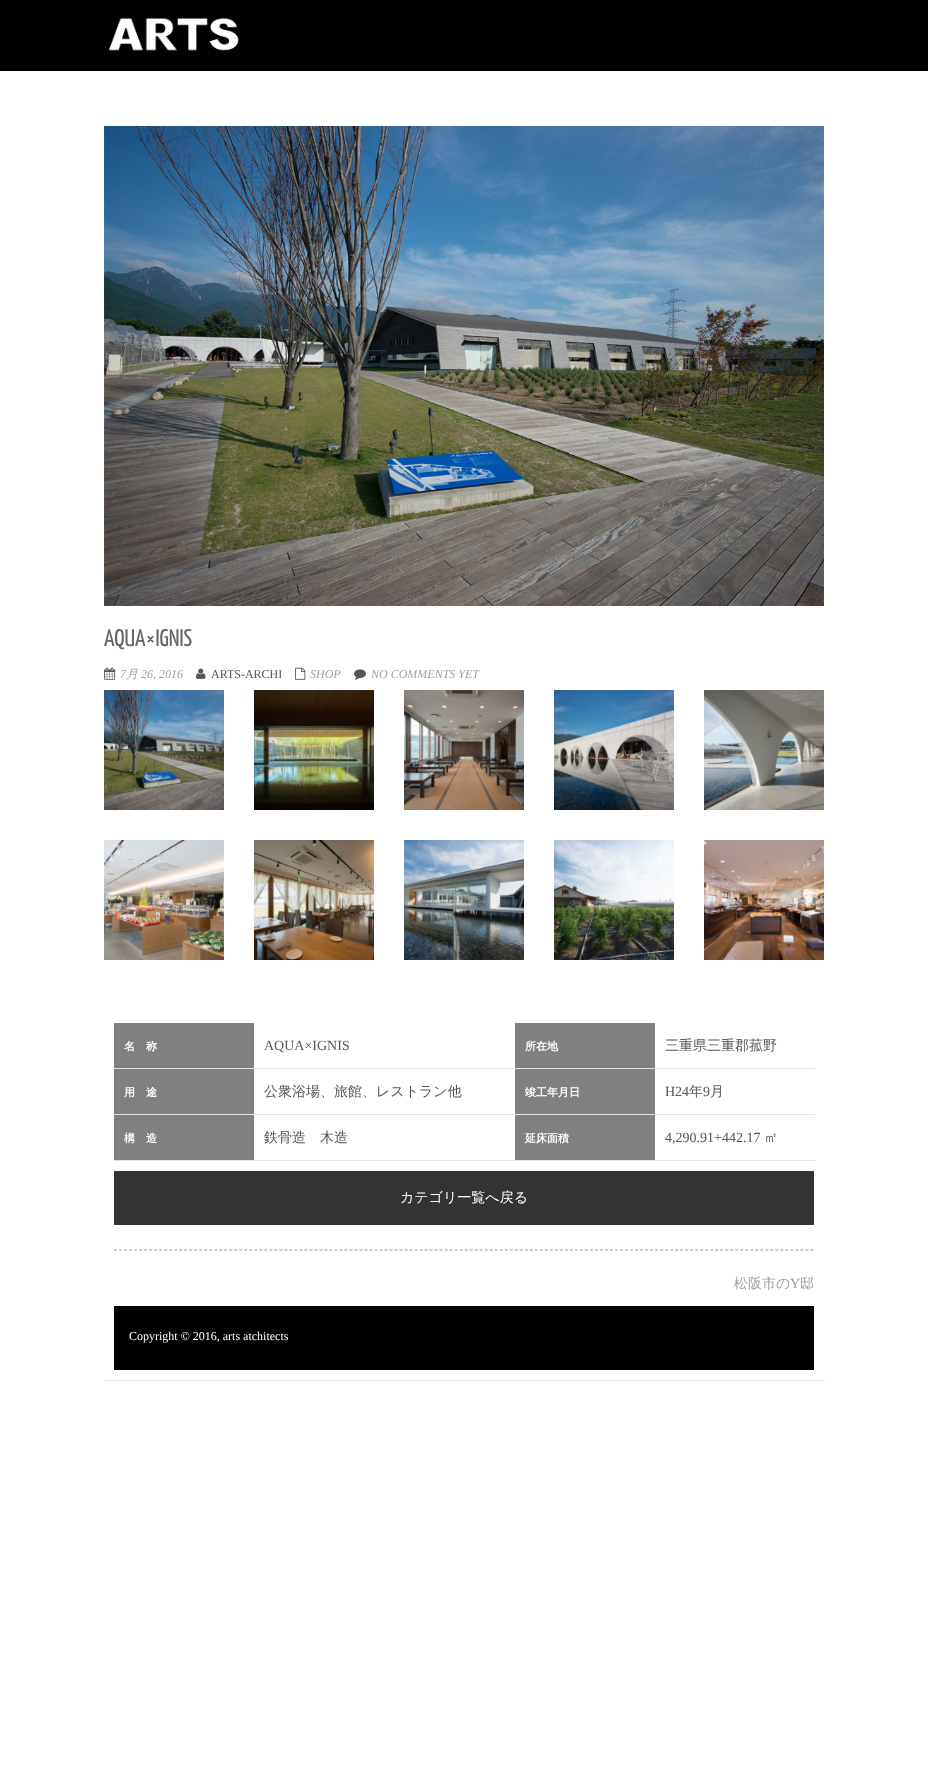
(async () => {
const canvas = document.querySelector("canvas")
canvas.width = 928
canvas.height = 1786
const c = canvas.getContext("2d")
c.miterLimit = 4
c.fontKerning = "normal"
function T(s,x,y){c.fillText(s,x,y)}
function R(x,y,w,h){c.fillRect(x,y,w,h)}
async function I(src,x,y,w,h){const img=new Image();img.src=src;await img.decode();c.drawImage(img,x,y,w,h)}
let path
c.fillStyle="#fff"
R(0,0,928,1786)
c.fillStyle="#000"
R(0,0,928,71)
await I("1.png",108,17,131,34)
await I("2.png",104,126,720,480)
c.font="200 24px Yanone Kaffeesatz"
c.fillStyle="#666"
T("AQUA×IGNIS",104,646)
await I("3.png",104,667,12,13)
c.font="italic 12px Liberation Serif"
c.fillStyle="#a0a0a0"
T("7",120,678)
c.font="italic 500 12px WenQuanYi Zen Hei"
T("月",126,678)
c.font="italic 12px Liberation Serif"
T("26, 2016",141,678)
await I("4.png",196,668,10,11)
c.font="12px Liberation Serif"
c.fillStyle="#555"
T("ARTS-ARCHI",211,678)
await I("5.png",295,667,11,13)
c.font="italic 12px Liberation Serif"
c.fillStyle="#a0a0a0"
T("SHOP",310,678)
await I("6.png",354,669,12,11)
T("NO COMMENTS YET",371,678)
await I("7.png",104,690,120,120)
await I("8.png",254,690,120,120)
await I("9.png",404,690,120,120)
await I("10.png",554,690,120,120)
await I("11.png",704,690,120,120)
await I("12.png",104,840,120,120)
await I("13.png",254,840,120,120)
await I("14.png",404,840,120,120)
await I("15.png",554,840,120,120)
await I("16.png",704,840,120,120)
c.fillStyle="#e3e3e3"
R(104,1380,721,1)
c.fillStyle="#808080"
R(114,1023,140,45)
c.font="bold 11px WenQuanYi Zen Hei"
c.fillStyle="#fff"
T("名　称",124,1050)
c.font="14px Liberation Serif"
c.fillStyle="#555"
T("AQUA×IGNIS",264,1050)
c.fillStyle="#808080"
R(515,1023,140,45)
c.font="bold 11px WenQuanYi Zen Hei"
c.fillStyle="#fff"
T("所在地",525,1050)
c.fillStyle="#e3e3e3"
R(114,1068,701,1)
c.font="500 14px WenQuanYi Zen Hei"
c.fillStyle="#555"
T("三重県三重郡菰野",665,1050)
c.fillStyle="#808080"
R(114,1069,140,45)
c.font="bold 11px WenQuanYi Zen Hei"
c.fillStyle="#fff"
T("用　途",124,1096)
c.font="500 14px WenQuanYi Zen Hei"
c.fillStyle="#555"
T("公衆浴場、旅館、レストラン他",264,1096)
c.fillStyle="#808080"
R(515,1069,140,45)
c.font="bold 11px WenQuanYi Zen Hei"
c.fillStyle="#fff"
T("竣工年月日",525,1096)
c.fillStyle="#e3e3e3"
R(114,1114,701,1)
c.font="14px Liberation Serif"
c.fillStyle="#555"
T("H24",665,1096)
c.font="500 14px WenQuanYi Zen Hei"
T("年",689,1096)
c.font="14px Liberation Serif"
T("9",703,1096)
c.font="500 14px WenQuanYi Zen Hei"
T("月",710,1096)
c.fillStyle="#808080"
R(114,1115,140,45)
c.font="bold 11px WenQuanYi Zen Hei"
c.fillStyle="#fff"
T("構　造",124,1142)
c.font="500 14px WenQuanYi Zen Hei"
c.fillStyle="#555"
T("鉄骨造　木造",264,1142)
c.fillStyle="#808080"
R(515,1115,140,45)
c.font="bold 11px WenQuanYi Zen Hei"
c.fillStyle="#fff"
T("延床面積",525,1142)
c.fillStyle="#e3e3e3"
R(114,1160,701,1)
c.font="14px Liberation Serif"
c.fillStyle="#555"
T("4,290.91+442.17",665,1142)
c.font="500 14px WenQuanYi Zen Hei"
T("㎡",764,1142)
c.fillStyle="#333"
R(114,1171,700,54)
c.fillStyle="#fff"
T("カテゴリ一覧へ戻る",400,1202)
path = new Path2D("M114 1249.5h700")
c.strokeStyle="#ccc"
c.setLineDash([3,2.01])
c.stroke(path)
path = new Path2D("M114 1250.5h700")
c.stroke(path)
c.fillStyle="#a0a0a0"
T("松阪市の",734,1288)
c.font="14px Liberation Serif"
T("Y",790,1288)
c.font="500 14px WenQuanYi Zen Hei"
T("邸",800,1288)
c.fillStyle="#000"
R(114,1306,700,64)
c.font="12px Liberation Serif"
c.fillStyle="#fff"
T("Copyright © 2016, arts atchitects",129,1340)
})()
